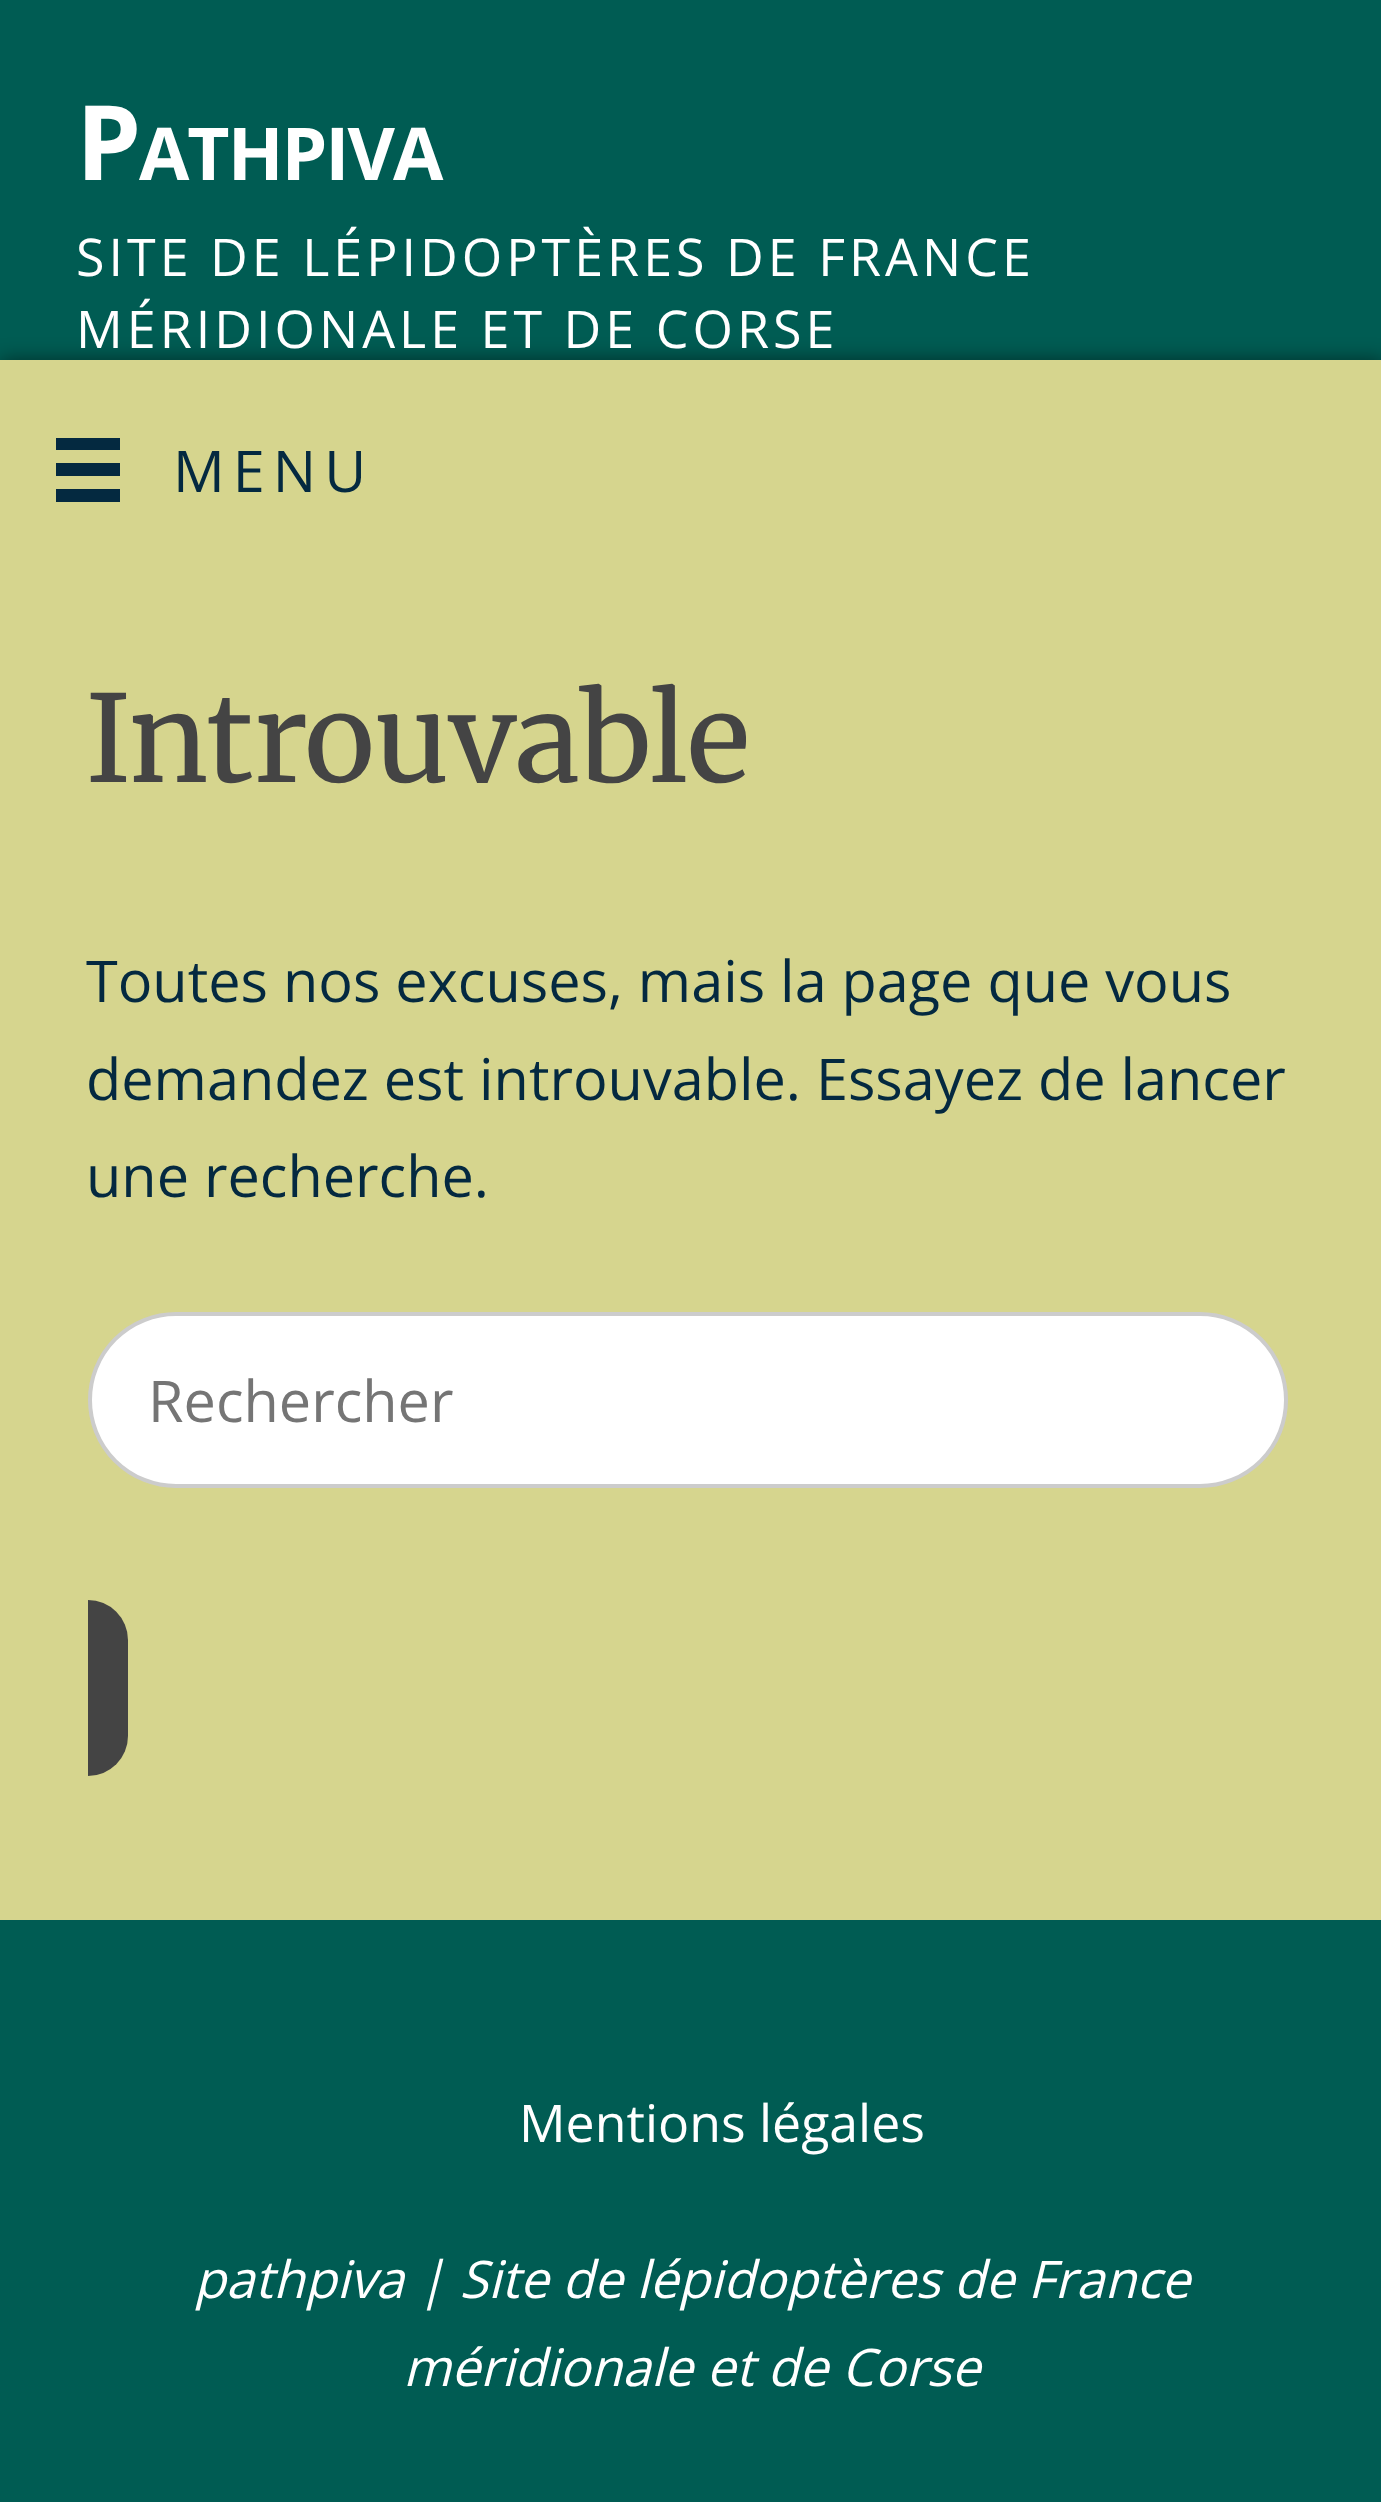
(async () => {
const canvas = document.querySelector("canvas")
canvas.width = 1381
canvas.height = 2502
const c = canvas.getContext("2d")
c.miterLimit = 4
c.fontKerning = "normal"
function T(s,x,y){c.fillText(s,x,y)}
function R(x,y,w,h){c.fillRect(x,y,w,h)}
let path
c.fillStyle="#005c53"
R(0,0,1381,2502)
c.letterSpacing="-2px"
c.font="bold 104px Open Sans"
c.fillStyle="#fff"
T("P",76,180)
c.font="bold 73px Open Sans"
T("ATHPIVA",139,180)
c.letterSpacing="4px"
c.font="52px Open Sans"
T("SITE DE LÉPIDOPTÈRES DE FRANCE",76,276)
c.fillStyle="#00000080"
c.filter="blur(10px)"
c.beginPath()
c.rect(0,360,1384,216)
c.fill()
c.filter="none"
c.fillStyle="#fff"
T("MÉRIDIONALE ET DE CORSE",76,348)
c.fillStyle="#d6d58e"
R(0,360,1381,1560)
c.letterSpacing="8px"
c.font="57.6px Open Sans"
c.fillStyle="#042940"
T("MENU",173,492)
path = new Path2D("M56 438v12h64v-12zm0 25v13h64v-13zm0 26v13h64v-13z")
c.fill(path)
c.letterSpacing="0px"
c.font="120px Merriweather"
c.fillStyle="#444"
T("Introuvable",86,782)
c.font="57.6px Open Sans"
c.fillStyle="#042940"
T("Toutes nos excuses, mais la page que vous",86,1002)
T("demandez est introuvable. Essayez de lancer",86,1100)
T("une recherche.",86,1197)
c.fillStyle="#fff"
c.beginPath()
c.roundRect(90,1314,1196,172,86)
c.fill()
c.strokeStyle="#ccc"
c.lineWidth=4
c.stroke()
c.fillStyle="#757575"
T("Rechercher",148,1422)
c.fillStyle="#444"
c.beginPath()
c.roundRect(88,1600,40,176,[0,88,88,0])
c.fill()
c.font="51.8px Open Sans"
c.fillStyle="#fff"
T("Mentions légales",519,2142)
c.font="italic 51.8px Open Sans"
T("pathpiva | Site de lépidoptères de France",194,2298)
T("méridionale et de Corse",403,2386)
})()
